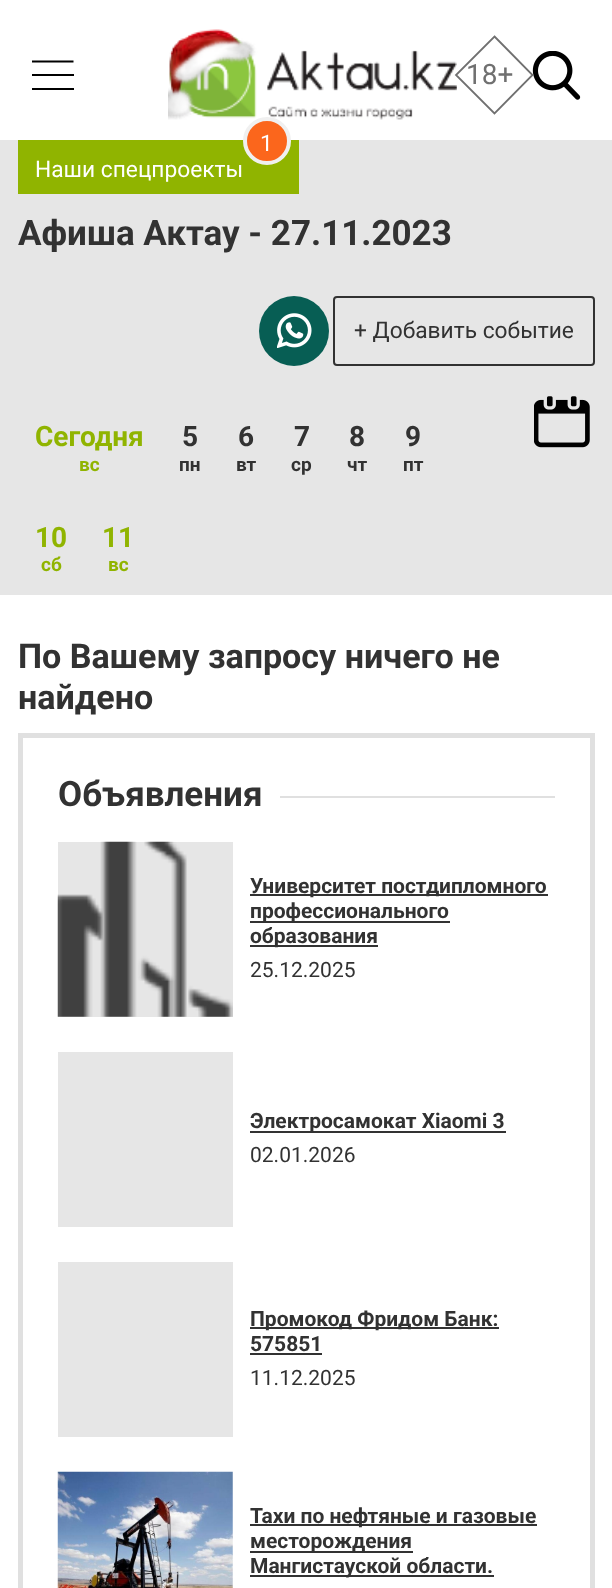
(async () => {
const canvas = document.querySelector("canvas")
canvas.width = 612
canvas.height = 1588
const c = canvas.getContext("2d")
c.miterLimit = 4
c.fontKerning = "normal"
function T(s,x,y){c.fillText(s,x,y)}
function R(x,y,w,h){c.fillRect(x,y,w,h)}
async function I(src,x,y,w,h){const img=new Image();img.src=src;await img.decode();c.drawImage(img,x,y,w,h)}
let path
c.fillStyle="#fff"
R(0,0,612,1588)
c.save()
c.beginPath()
c.rect(32,54,42,42)
c.clip()
path = new Path2D("M31.5 61.5h42")
c.strokeStyle="#000"
c.lineWidth=2.1
c.stroke(path)
c.restore()
c.fillStyle="#000"
R(32,74,42,2)
R(32,88,42,2)
await I("1.png",168,29,289,91)
await I("2.png",532,51,49,49)
path = new Path2D("M494.5 36.5l38 38.5l-38 38.5l-38.5-38.5z")
c.strokeStyle="#707070"
c.lineWidth=1.8
c.stroke(path)
c.font="28px Roboto"
c.fillStyle="#707070"
T("18+",466,84)
c.fillStyle="#e6e6e6"
R(0,140,612,455)
c.fillStyle="#90b400"
R(18,140,281,54)
c.fillStyle="#fb661c"
c.beginPath()
c.arc(267,141,22,0,7)
c.fill()
c.strokeStyle="#f0f0f0"
c.lineWidth=4
c.stroke()
c.font="22.75px Roboto"
c.fillStyle="#fff"
T("1",260,151)
T("Наши спецпроекты",35,177)
c.font="bold 35px Roboto"
c.fillStyle="#323232"
T("Афиша Актау - 27.11.2023",18,245)
c.fillStyle="#075e54"
c.beginPath()
c.arc(294,331,35,0,7)
c.fill()
await I("3.png",277,313,35,35)
c.beginPath()
c.roundRect(334,297,260,68,3)
c.strokeStyle="#323232"
c.lineWidth=2
c.stroke()
c.font="22.75px Roboto"
c.fillStyle="#323232"
T("+ Добавить событие",354,338)
c.font="bold 28px Roboto"
c.fillStyle="#90b400"
T("Сегодня",35,446)
c.font="bold 19px Roboto"
T("вс",79,471)
c.font="bold 28px Roboto"
c.fillStyle="#323232"
T("5",182,446)
c.font="bold 19px Roboto"
T("пн",179,471)
c.font="bold 28px Roboto"
T("6",238,446)
c.font="bold 19px Roboto"
T("вт",236,471)
c.font="bold 28px Roboto"
T("7",294,446)
c.font="bold 19px Roboto"
T("ср",291,471)
c.font="bold 28px Roboto"
T("8",349,446)
c.font="bold 19px Roboto"
T("чт",347,471)
c.font="bold 28px Roboto"
T("9",405,446)
c.font="bold 19px Roboto"
T("пт",403,471)
c.font="bold 28px Roboto"
c.fillStyle="#90b400"
T("10",35,547)
c.font="bold 19px Roboto"
T("сб",41,571)
c.font="bold 28px Roboto"
T("11",102,547)
c.font="bold 19px Roboto"
T("вс",108,571)
await I("4.png",534,396,56,52)
c.font="bold 34.1px Roboto"
c.fillStyle="#323232"
T("По Вашему запросу ничего не",18,668)
T("найдено",18,709)
c.strokeStyle="#e0e0e0"
c.lineWidth=5
c.strokeRect(20.5,735.5,572,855)
c.font="bold 35px Roboto"
T("Объявления",58,806)
c.fillStyle="#e0e0e0"
R(280,796,275,2)
c.fillStyle="#e6e6e6"
R(58,842,175,175)
await I("5.png",57,841,176,176)
c.fillStyle="#323232"
R(250,894,298,2)
c.font="bold 21px Roboto"
T("Университет постдипломного",250,893)
R(250,921,200,2)
T("профессионального",250,918)
R(250,945,128,2)
T("образования",250,943)
c.font="21px Roboto"
T("25.12.2025",250,977)
c.fillStyle="#e6e6e6"
R(58,1052,175,175)
c.fillStyle="#323232"
R(250,1131,256,2)
c.font="bold 21px Roboto"
T("Электросамокат Xiaomi 3",250,1128)
c.font="21px Roboto"
T("02.01.2026",250,1162)
c.fillStyle="#e6e6e6"
R(58,1262,175,175)
c.fillStyle="#323232"
R(250,1327,249,2)
c.font="bold 21px Roboto"
T("Промокод Фридом Банк:",250,1326)
T("575851",250,1351)
R(250,1353,72,2)
c.font="21px Roboto"
T("11.12.2025",250,1385)
await I("6.png",57,1471,176,117)
R(250,1524,287,2)
c.font="bold 21px Roboto"
T("Тахи по нефтяные и газовые",250,1523)
R(250,1551,163,2)
T("месторождения",250,1548)
R(250,1575,244,2)
T("Мангистауской области.",250,1573)
})()
